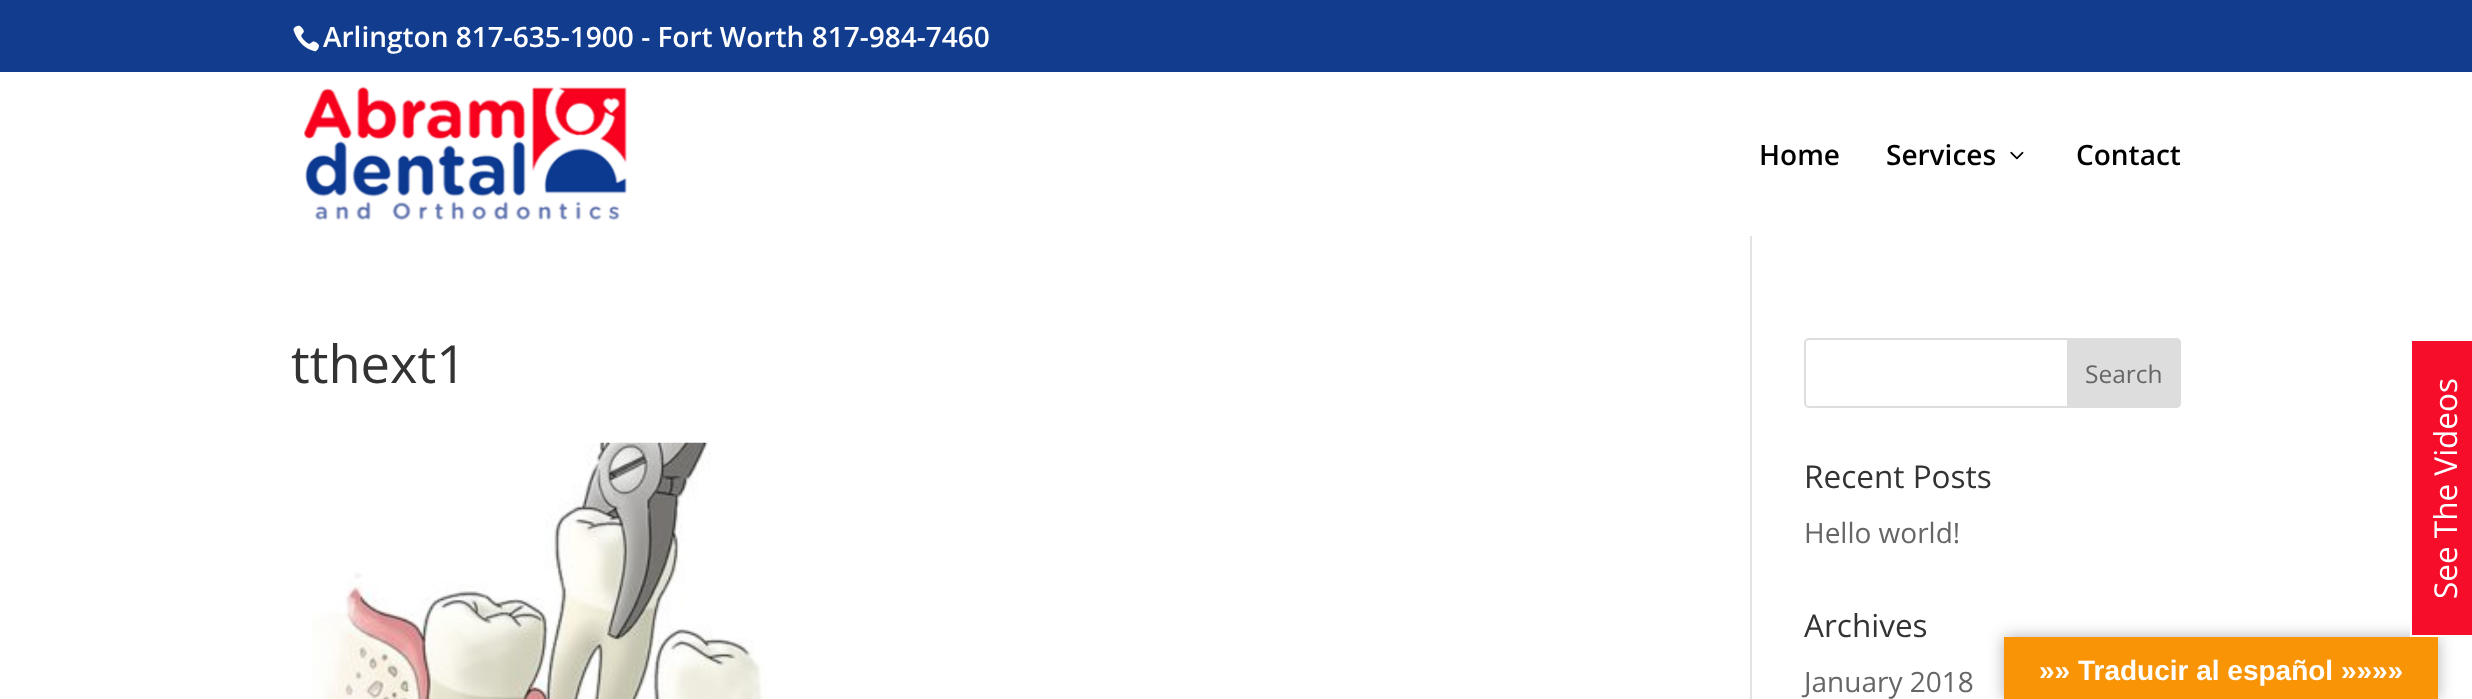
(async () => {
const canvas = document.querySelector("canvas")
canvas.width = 2472
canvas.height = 699
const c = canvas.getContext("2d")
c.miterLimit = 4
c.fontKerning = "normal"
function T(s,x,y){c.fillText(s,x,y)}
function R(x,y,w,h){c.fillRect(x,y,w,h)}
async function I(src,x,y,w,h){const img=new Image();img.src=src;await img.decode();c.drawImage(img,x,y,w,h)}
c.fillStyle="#fff"
R(0,0,2472,699)
c.fillStyle="#123d8f"
R(0,0,2472,72)
await I("1.png",293,25,27,27)
c.font="600 28px Open Sans"
c.fillStyle="#fff"
T("Arlington 817-635-1900 - Fort Worth 817-984-7460",323,47)
await I("2.png",304,86,323,135)
c.fillStyle="#000"
T("Home",1759,165)
T("Services",1886,165)
await I("3.png",2010,151,14,9)
T("Contact",2076,165)
c.fillStyle="#e2e2e2"
R(1750,236,2,463)
c.font="52.5px Open Sans"
c.fillStyle="#333"
T("tthext1",291,383)
await I("4.png",312,442,456,257)
c.beginPath()
c.roundRect(1805,339,375,68,4)
c.strokeStyle="#ddd"
c.lineWidth=2
c.stroke()
c.fillStyle="#ddd"
c.beginPath()
c.roundRect(2068,339,112,68,[0,4,4,0])
c.fill()
c.stroke()
c.font="24.5px Open Sans"
c.fillStyle="#666"
T("Search",2085,383)
c.font="31.5px Open Sans"
c.fillStyle="#333"
T("Recent Posts",1804,488)
c.font="28px Open Sans"
c.fillStyle="#666"
T("Hello world!",1804,543)
c.font="31.5px Open Sans"
c.fillStyle="#333"
T("Archives",1804,637)
c.font="28px Open Sans"
c.fillStyle="#666"
T("January 2018",1804,692)
c.fillStyle="#0000004d"
c.filter="blur(8px)"
c.beginPath()
c.rect(2004,637,434,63)
c.fill()
c.filter="none"
c.fillStyle="#f50d2a"
R(2412,341,60,294)
c.fillStyle="#fff"
R(2410,622,2,15)
R(2410,635,40,2)
c.font="31.5px Open Sans"
c.save()
c.translate(2457,599)
c.rotate(-90 * Math.PI / 180)
c.fillText("See The Videos",0,0)
c.restore()
c.fillStyle="#f89406"
R(2004,637,434,62)
c.font="bold 28px Liberation Sans"
c.fillStyle="#fff"
T("»» Traducir al español »»»»",2039,680)
})()
